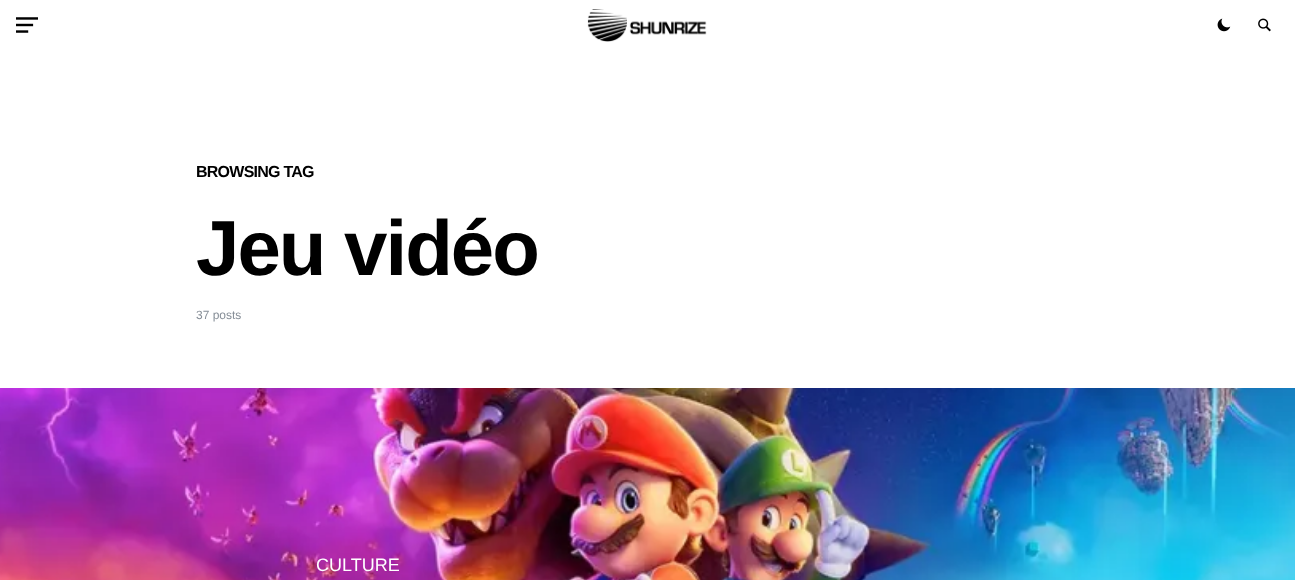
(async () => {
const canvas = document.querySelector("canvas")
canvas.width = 1295
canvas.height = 580
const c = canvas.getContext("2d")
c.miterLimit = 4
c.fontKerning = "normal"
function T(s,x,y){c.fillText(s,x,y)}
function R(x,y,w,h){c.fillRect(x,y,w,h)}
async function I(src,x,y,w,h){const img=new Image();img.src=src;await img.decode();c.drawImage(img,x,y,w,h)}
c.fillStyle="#fff"
R(0,0,1295,580)
await I("1.png",16,17,22,16)
await I("2.png",587,9,120,33)
await I("3.png",1217,18,14,14)
await I("4.png",1258,18,13,14)
c.letterSpacing="-0.75px"
c.font="bold 16px Liberation Sans"
c.fillStyle="#000"
T("BROWSING TAG",196,177)
c.letterSpacing="-2px"
c.font="bold 78px Liberation Sans"
T("Jeu vidéo",196,275)
c.letterSpacing="0px"
c.font="12px Liberation Sans"
c.fillStyle="#868e97"
T("37 posts",196,319)
await I("5.png",0,388,1295,192)
c.font="18px Liberation Sans"
c.fillStyle="#fff"
T("CULTURE",316,571)
})()
